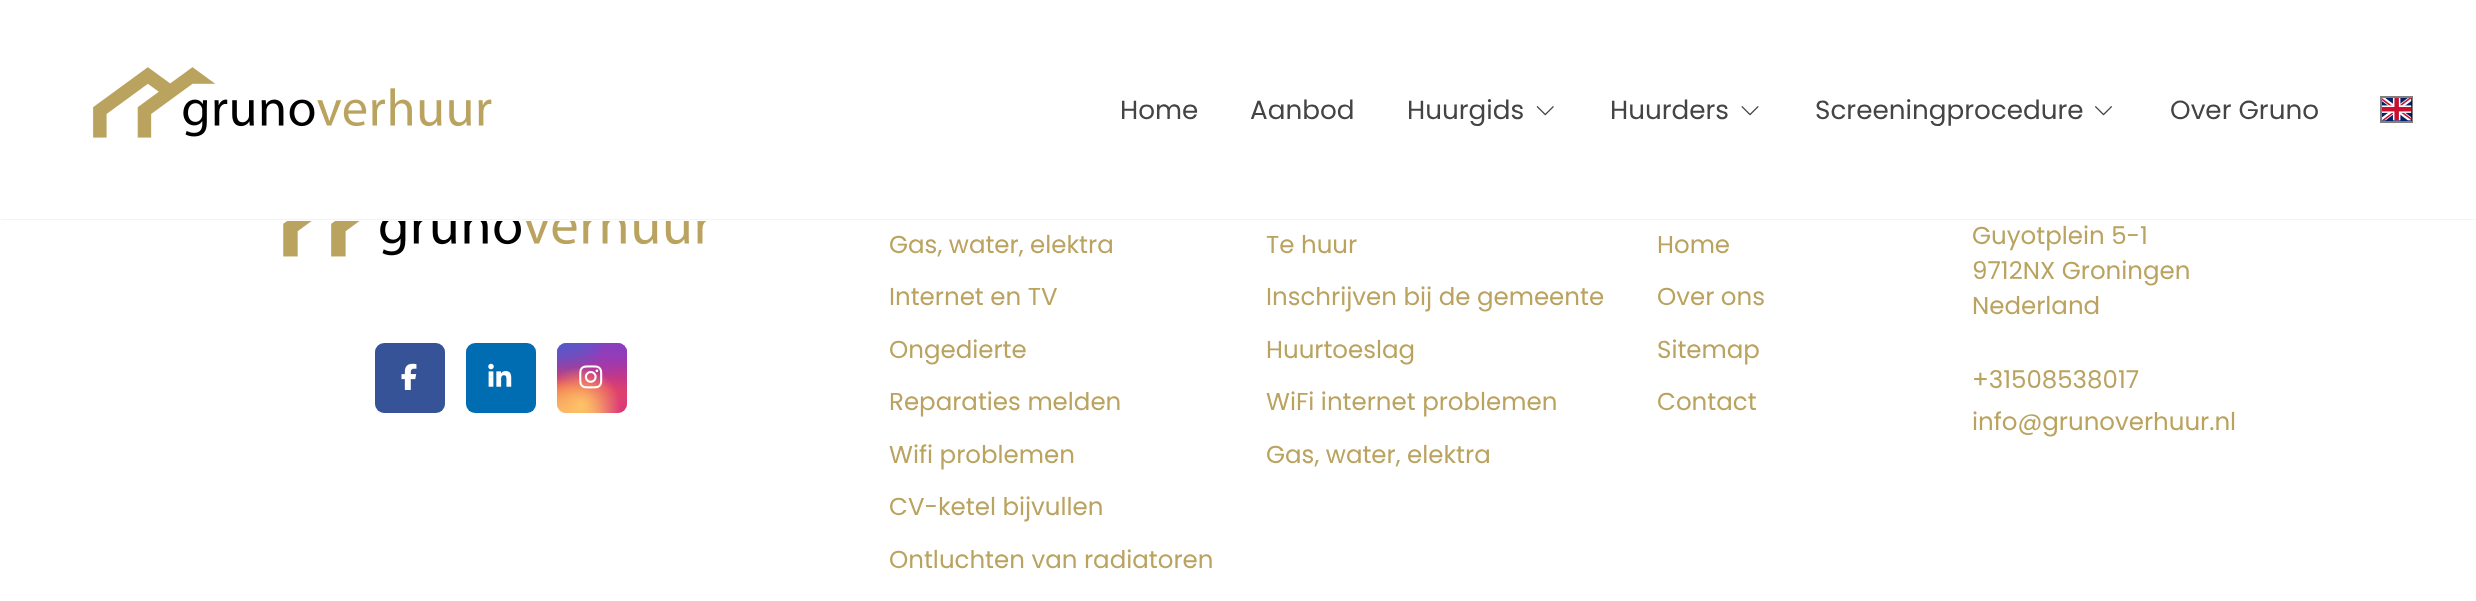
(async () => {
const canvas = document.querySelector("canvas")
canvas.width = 2476
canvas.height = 601
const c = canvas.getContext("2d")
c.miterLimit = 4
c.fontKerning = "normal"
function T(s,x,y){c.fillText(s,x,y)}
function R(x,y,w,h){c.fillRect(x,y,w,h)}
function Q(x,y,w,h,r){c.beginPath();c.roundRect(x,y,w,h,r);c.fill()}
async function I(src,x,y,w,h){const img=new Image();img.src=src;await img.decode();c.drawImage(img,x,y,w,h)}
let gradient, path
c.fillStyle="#fff"
R(0,0,2476,601)
c.fillStyle="#f4f4f6"
path = new Path2D("M2476 220h-2476l2-1h2472z")
c.fill(path)
await I("1.png",93,67,399,71)
c.font="26.25px Poppins"
c.fillStyle="#444"
T("Home",1120,119)
T("Aanbod",1250,119)
T("Huurgids",1407,119)
await I("2.png",1536,106,18,10)
T("Huurders",1610,119)
await I("3.png",1741,106,18,10)
T("Screeningprocedure",1815,119)
await I("4.png",2095,106,17,10)
T("Over Gruno",2170,119)
await I("5.png",2382,98,30,23)
c.strokeStyle="#00000080"
c.lineWidth=2
c.strokeRect(2381,97,31,25)
await I("6.png",283,221,424,36)
c.fillStyle="#365397"
Q(375,343,70,70,9)
await I("7.png",401,363,16,27)
c.fillStyle="#006db3"
Q(466,343,70,70,9)
await I("8.png",488,363,24,24)
gradient = c.createLinearGradient(592,343,592,413)
gradient.addColorStop(0,"#6559ca")
gradient.addColorStop(.3,"#bc318f")
gradient.addColorStop(.5,"#e33f5f")
gradient.addColorStop(.7,"#f77638")
gradient.addColorStop(1,"#fec66d")
c.fillStyle = gradient
Q(557,343,70,70,9)
gradient = c.createRadialGradient(627,413,0,627,413,99)
gradient.addColorStop(0,"#d9317a")
gradient.addColorStop(1,"#d9317a00")
c.fillStyle = gradient
Q(557,343,70,70,9)
gradient = c.createRadialGradient(599,163.12,0,599,163.12,59)
gradient.addColorStop(0,"#893dc2")
gradient.addColorStop(.5,"#893dc200")
c.fillStyle = gradient
c.beginPath()
c.roundRect(557,343,70,70,9)
c.save()
c.clip()
c.scale(1,119 / 59)
c.fillRect(0,0,2476,298)
c.restore()
gradient = c.createRadialGradient(627,343,0,627,343,99)
gradient.addColorStop(0,"#893dc2")
gradient.addColorStop(.5,"#893dc200")
c.fillStyle = gradient
Q(557,343,70,70,9)
gradient = c.createRadialGradient(571,164.41,0,571,164.41,79)
gradient.addColorStop(0,"#5258cf")
gradient.addColorStop(.5,"#5258cf00")
c.fillStyle = gradient
c.beginPath()
c.roundRect(557,343,70,70,9)
c.save()
c.clip()
c.scale(1,148 / 79)
c.fillRect(0,0,2476,321)
c.restore()
gradient = c.createRadialGradient(557,260.27,0,557,260.27,99)
gradient.addColorStop(0,"#5258cf")
gradient.addColorStop(.5,"#5258cf00")
c.fillStyle = gradient
c.beginPath()
c.roundRect(557,343,70,70,9)
c.save()
c.clip()
c.scale(1,124 / 99)
c.fillRect(0,0,2476,480)
c.restore()
gradient = c.createRadialGradient(557,441,0,557,441,120)
gradient.addColorStop(0,"#fec564")
gradient.addColorStop(.5,"#fec56400")
c.fillStyle = gradient
Q(557,343,70,70,9)
gradient = c.createRadialGradient(581,406,0,581,406,78)
gradient.addColorStop(0,"#fec564")
gradient.addColorStop(.5,"#fec56400")
c.fillStyle = gradient
Q(557,343,70,70,9)
await I("9.png",579,365,24,24)
c.font="24.5px Poppins"
c.fillStyle="#baa35f"
T("Gas, water, elektra",889,253)
T("Internet en TV",889,305)
T("Ongedierte",889,358)
T("Reparaties melden",889,410)
T("Wifi problemen",889,463)
T("CV-ketel bijvullen",889,515)
T("Ontluchten van radiatoren",889,568)
T("Te huur",1266,253)
T("Inschrijven bij de gemeente",1266,305)
T("Huurtoeslag",1266,358)
T("WiFi internet problemen",1266,410)
T("Gas, water, elektra",1266,463)
T("Home",1657,253)
T("Over ons",1657,305)
T("Sitemap",1657,358)
T("Contact",1657,410)
T("Guyotplein 5-1",1972,244)
T("9712NX Groningen",1972,279)
T("Nederland",1972,314)
T("+31508538017",1972,388)
T("info@grunoverhuur.nl",1972,430)
})()
